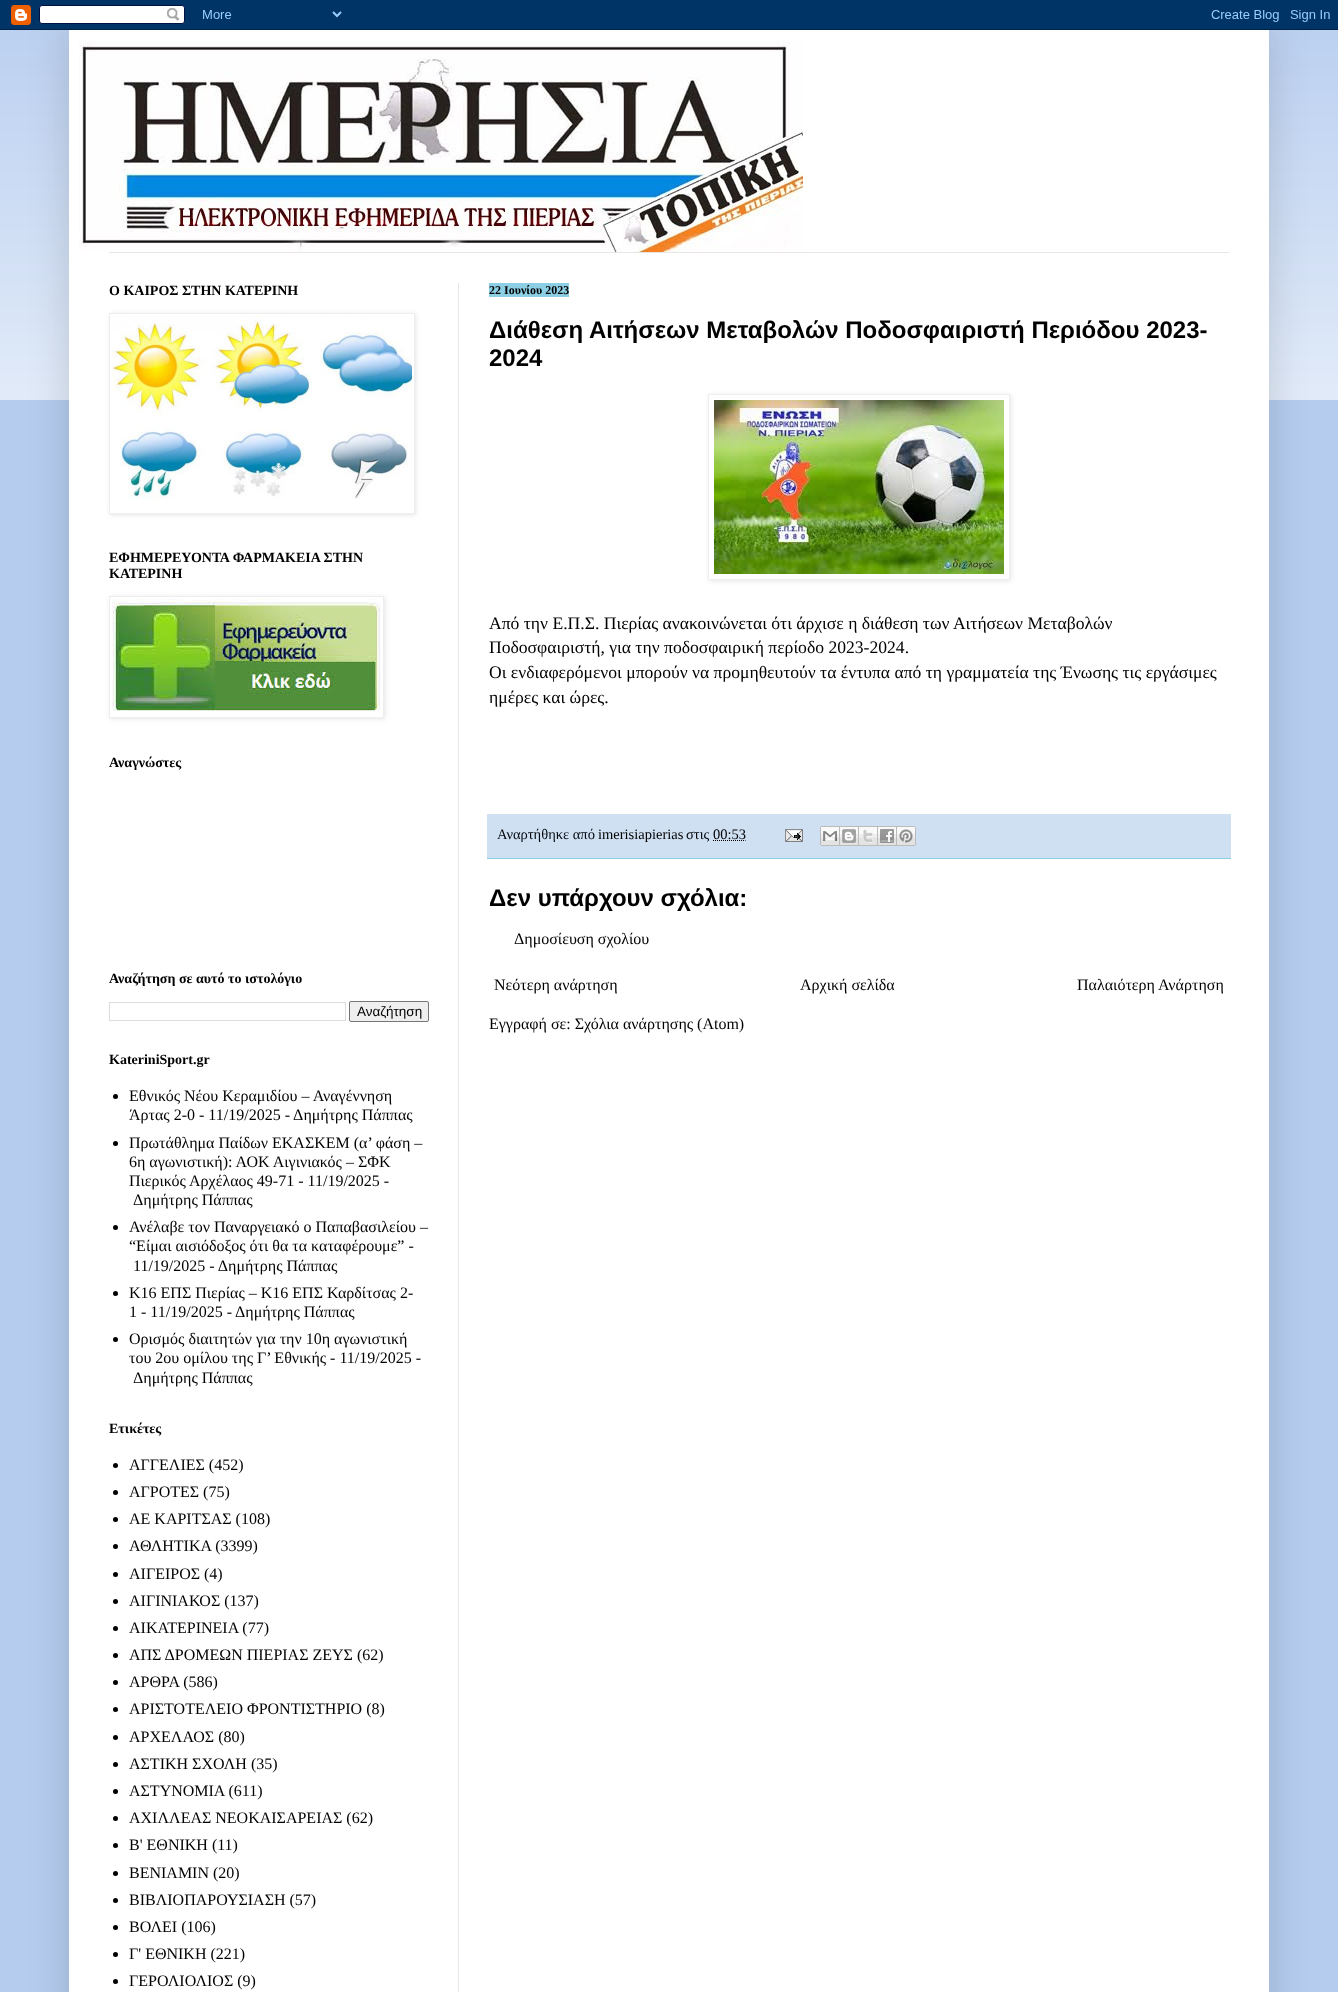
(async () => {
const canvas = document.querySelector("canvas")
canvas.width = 1338
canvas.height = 1992
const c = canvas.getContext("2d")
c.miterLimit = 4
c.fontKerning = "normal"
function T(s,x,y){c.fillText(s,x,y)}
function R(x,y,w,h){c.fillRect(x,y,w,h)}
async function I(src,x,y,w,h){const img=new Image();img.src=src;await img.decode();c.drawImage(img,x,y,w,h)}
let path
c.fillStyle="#b5ccef"
R(0,0,1338,1992)
await I("2.png",0,30,1338,370)
c.fillStyle="#00000026"
c.filter="blur(20px)"
c.beginPath()
c.rect(69,30,1200,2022)
c.fill()
c.filter="none"
await I("1.png",0,0,1338,30)
c.fillStyle="#fff"
R(69,30,1200,1962)
await I("3.png",79,40,724,212)
c.fillStyle="#e6e6e6"
R(109,252,1120,1)
R(458,283,1,1709)
c.font="bold 14px Liberation Serif"
c.fillStyle="#000"
T("Ο ΚΑΙΡΟΣ ΣΤΗΝ ΚΑΤΕΡΙΝΗ",109,295)
c.save()
path = new Path2D("M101 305h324v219h-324zm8 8h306v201h-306z")
c.clip(path,"evenodd")
c.fillStyle="#0000001a"
c.filter="blur(2.5px)"
c.beginPath()
c.rect(110,314,306,201)
c.fill()
c.filter="none"
c.restore()
c.strokeStyle="#eee"
c.strokeRect(109.5,313.5,305,200)
await I("4.png",112,316,300,184)
T("ΕΦΗΜΕΡΕΥΟΝΤΑ ΦΑΡΜΑΚΕΙΑ ΣΤΗΝ",109,562)
T("ΚΑΤΕΡΙΝΗ",109,578)
c.save()
path = new Path2D("M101 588h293v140h-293zm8 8h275v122h-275z")
c.clip(path,"evenodd")
c.fillStyle="#0000001a"
c.filter="blur(2.5px)"
c.beginPath()
c.rect(110,597,275,122)
c.fill()
c.filter="none"
c.restore()
c.strokeRect(109.5,596.5,274,121)
await I("5.png",112,599,269,112)
T("Αναγνώστες",109,767)
T("Αναζήτηση σε αυτό το ιστολόγιο",109,983)
c.strokeStyle="#ddd"
c.strokeRect(109.5,1002.5,236,18)
c.fillStyle="#efefef"
c.beginPath()
c.roundRect(349.5,1001.5,79,20,1.5)
c.fill()
c.strokeStyle="#767676"
c.stroke()
c.font="13.5px Liberation Sans"
c.fillStyle="#000"
T("Αναζήτηση",357,1016)
c.font="bold 14px Liberation Serif"
T("KateriniSport.gr",109,1064)
c.beginPath()
c.arc(115.5,1096.5,2.5,0,7)
c.fill()
c.font="16px Liberation Serif"
T("Εθνικός Νέου Κεραμιδίου – Αναγέννηση",129,1101)
T("Άρτας 2-0 - 11/19/2025 - Δημήτρης Πάππας",129,1120)
c.beginPath()
c.arc(115.5,1143.5,2.5,0,7)
c.fill()
T("Πρωτάθλημα Παίδων ΕΚΑΣΚΕΜ (α’ φάση –",129,1148)
T("6η αγωνιστική): ΑΟΚ Αιγινιακός – ΣΦΚ",129,1167)
T("Πιερικός Αρχέλαος 49-71 - 11/19/2025 -",129,1186)
T("Δημήτρης Πάππας",133,1205)
c.beginPath()
c.arc(115.5,1227.5,2.5,0,7)
c.fill()
T("Ανέλαβε τον Παναργειακό ο Παπαβασιλείου –",129,1232)
T("“Είμαι αισιόδοξος ότι θα τα καταφέρουμε” -",129,1251)
T("11/19/2025 - Δημήτρης Πάππας",133,1271)
c.beginPath()
c.arc(115.5,1293.5,2.5,0,7)
c.fill()
T("Κ16 ΕΠΣ Πιερίας – Κ16 ΕΠΣ Καρδίτσας 2-",129,1298)
T("1 - 11/19/2025 - Δημήτρης Πάππας",129,1317)
c.beginPath()
c.arc(115.5,1339.5,2.5,0,7)
c.fill()
T("Ορισμός διαιτητών για την 10η αγωνιστική",129,1344)
T("του 2ου ομίλου της Γ’ Εθνικής - 11/19/2025 -",129,1363)
T("Δημήτρης Πάππας",133,1383)
c.font="bold 14px Liberation Serif"
T("Ετικέτες",109,1433)
c.beginPath()
c.arc(115.5,1465.5,2.5,0,7)
c.fill()
c.font="16px Liberation Serif"
T("ΑΓΓΕΛΙΕΣ (452)",129,1470)
c.beginPath()
c.arc(115.5,1492.5,2.5,0,7)
c.fill()
T("ΑΓΡΟΤΕΣ (75)",129,1497)
c.beginPath()
c.arc(115.5,1519.5,2.5,0,7)
c.fill()
T("ΑΕ ΚΑΡΙΤΣΑΣ (108)",129,1524)
c.beginPath()
c.arc(115.5,1546.5,2.5,0,7)
c.fill()
T("ΑΘΛΗΤΙΚΑ (3399)",129,1551)
c.beginPath()
c.arc(115.5,1574.5,2.5,0,7)
c.fill()
T("ΑΙΓΕΙΡΟΣ (4)",129,1579)
c.beginPath()
c.arc(115.5,1601.5,2.5,0,7)
c.fill()
T("ΑΙΓΙΝΙΑΚΟΣ (137)",129,1606)
c.beginPath()
c.arc(115.5,1628.5,2.5,0,7)
c.fill()
T("ΑΙΚΑΤΕΡΙΝΕΙΑ (77)",129,1633)
c.beginPath()
c.arc(115.5,1655.5,2.5,0,7)
c.fill()
T("ΑΠΣ ΔΡΟΜΕΩΝ ΠΙΕΡΙΑΣ ΖΕΥΣ (62)",129,1660)
c.beginPath()
c.arc(115.5,1682.5,2.5,0,7)
c.fill()
T("ΑΡΘΡΑ (586)",129,1687)
c.beginPath()
c.arc(115.5,1709.5,2.5,0,7)
c.fill()
T("ΑΡΙΣΤΟΤΕΛΕΙΟ ΦΡΟΝΤΙΣΤΗΡΙΟ (8)",129,1714)
c.beginPath()
c.arc(115.5,1737.5,2.5,0,7)
c.fill()
T("ΑΡΧΕΛΑΟΣ (80)",129,1742)
c.beginPath()
c.arc(115.5,1764.5,2.5,0,7)
c.fill()
T("ΑΣΤΙΚΗ ΣΧΟΛΗ (35)",129,1769)
c.beginPath()
c.arc(115.5,1791.5,2.5,0,7)
c.fill()
T("ΑΣΤΥΝΟΜΙΑ (611)",129,1796)
c.beginPath()
c.arc(115.5,1818.5,2.5,0,7)
c.fill()
T("ΑΧΙΛΛΕΑΣ ΝΕΟΚΑΙΣΑΡΕΙΑΣ (62)",129,1823)
c.beginPath()
c.arc(115.5,1845.5,2.5,0,7)
c.fill()
T("Β' ΕΘΝΙΚΗ (11)",129,1850)
c.beginPath()
c.arc(115.5,1873.5,2.5,0,7)
c.fill()
T("ΒΕΝΙΑΜΙΝ (20)",129,1878)
c.beginPath()
c.arc(115.5,1900.5,2.5,0,7)
c.fill()
T("ΒΙΒΛΙΟΠΑΡΟΥΣΙΑΣΗ (57)",129,1905)
c.beginPath()
c.arc(115.5,1927.5,2.5,0,7)
c.fill()
T("ΒΟΛΕΙ (106)",129,1932)
c.beginPath()
c.arc(115.5,1954.5,2.5,0,7)
c.fill()
T("Γ' ΕΘΝΙΚΗ (221)",129,1959)
c.beginPath()
c.arc(115.5,1981.5,2.5,0,7)
c.fill()
T("ΓΕΡΟΛΙΟΛΙΟΣ (9)",129,1986)
c.fillStyle="#8ccee3"
R(489,283,80,14)
c.font="bold 12px Liberation Serif"
c.fillStyle="#000"
T("22 Ιουνίου 2023",489,294)
c.font="bold 24px Liberation Sans"
T("Διάθεση Αιτήσεων Μεταβολών Ποδοσφαιριστή Περιόδου 2023-",489,338)
T("2024",489,366)
c.save()
path = new Path2D("M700 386h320v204h-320zm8 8h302v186h-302z")
c.clip(path,"evenodd")
c.fillStyle="#0000001a"
c.filter="blur(2.5px)"
c.beginPath()
c.rect(709,395,302,186)
c.fill()
c.filter="none"
c.restore()
c.strokeStyle="#eee"
c.strokeRect(708.5,394.5,301,185)
await I("6.png",714,400,290,174)
c.font="17.6px Liberation Serif"
T("Από την Ε.Π.Σ. Πιερίας ανακοινώνεται ότι άρχισε η διάθεση των Αιτήσεων Μεταβολών",489,629)
T("Ποδοσφαιριστή, για την ποδοσφαιρική περίοδο 2023-2024.",489,653)
T("Οι ενδιαφερόμενοι μπορούν να προμηθευτούν τα έντυπα από τη γραμματεία της Ένωσης τις εργάσιμες",489,678)
T("ημέρες και ώρες.",489,703)
c.fillStyle="#cfe0f2"
R(487,814,744,44)
c.fillStyle="#8ccee3"
R(487,858,744,1)
c.font="14.5px Liberation Serif"
c.fillStyle="#04080e"
T("Αναρτήθηκε από",497,839)
c.fillStyle="#000"
T("imerisiapierias",598,839)
c.fillStyle="#04080e"
T("στις",686,839)
path = new Path2D("M713 840.5h32.5")
c.strokeStyle="#000"
c.setLineDash([1,1])
c.stroke(path)
c.fillStyle="#000"
T("00:53",713,839)
await I("7.png",785,829,18,13)
await I("8.png",820,826,20,20)
await I("9.png",840,826,19,20)
await I("10.png",859,826,19,20)
await I("11.png",878,826,19,20)
await I("12.png",897,826,19,20)
c.font="bold 24px Liberation Sans"
T("Δεν υπάρχουν σχόλια:",489,906)
c.font="16px Liberation Serif"
T("Δημοσίευση σχολίου",514,944)
T("Νεότερη ανάρτηση",494,990)
T("Αρχική σελίδα",800,990)
T("Παλαιότερη Ανάρτηση",1077,990)
T("Εγγραφή σε: Σχόλια ανάρτησης (Atom)",489,1029)
})()
